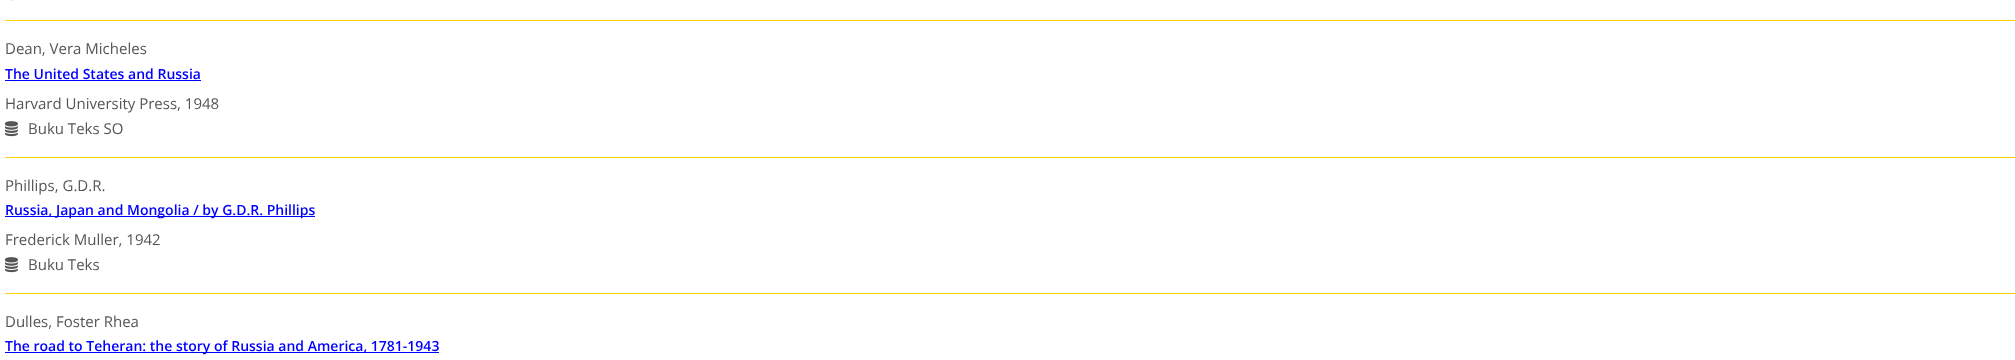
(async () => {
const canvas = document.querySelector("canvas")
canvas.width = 2015
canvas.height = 360
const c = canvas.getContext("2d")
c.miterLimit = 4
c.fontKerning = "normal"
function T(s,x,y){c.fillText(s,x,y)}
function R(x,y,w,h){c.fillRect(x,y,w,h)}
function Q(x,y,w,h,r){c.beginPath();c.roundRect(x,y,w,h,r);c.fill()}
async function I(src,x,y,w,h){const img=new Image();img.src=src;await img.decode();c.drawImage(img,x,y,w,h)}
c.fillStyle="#fff"
R(0,0,2015,360)
await I("1.png",9,0,4,1)
c.fillStyle="#ffd200"
Q(5,20,2010,1,.5)
c.font="15px Open Sans"
c.fillStyle="#555"
T("Dean, Vera Micheles",5,54)
c.font="600 14px Open Sans"
c.fillStyle="#00f"
T("The United States and Russia",5,79)
R(5,80,196,1)
c.font="15px Open Sans"
c.fillStyle="#555"
T("Harvard University Press, 1948",5,109)
await I("2.png",5,121,13,16)
T("Buku Teks SO",28,134)
c.fillStyle="#ffd200"
Q(5,157,2010,1,.5)
c.fillStyle="#555"
T("Phillips, G.D.R.",5,191)
c.fillStyle="#00f"
R(5,216,310,1)
c.font="600 14px Open Sans"
T("Russia, Japan and Mongolia / by G.D.R. Phillips",5,215)
c.font="15px Open Sans"
c.fillStyle="#555"
T("Frederick Muller, 1942",5,245)
await I("2.png",5,257,13,16)
T("Buku Teks",28,270)
c.fillStyle="#ffd200"
Q(5,293,2010,1,.5)
c.fillStyle="#555"
T("Dulles, Foster Rhea",5,327)
c.fillStyle="#00f"
R(5,352,434,1)
c.font="600 14px Open Sans"
T("The road to Teheran: the story of Russia and America, 1781-1943",5,351)
})()
